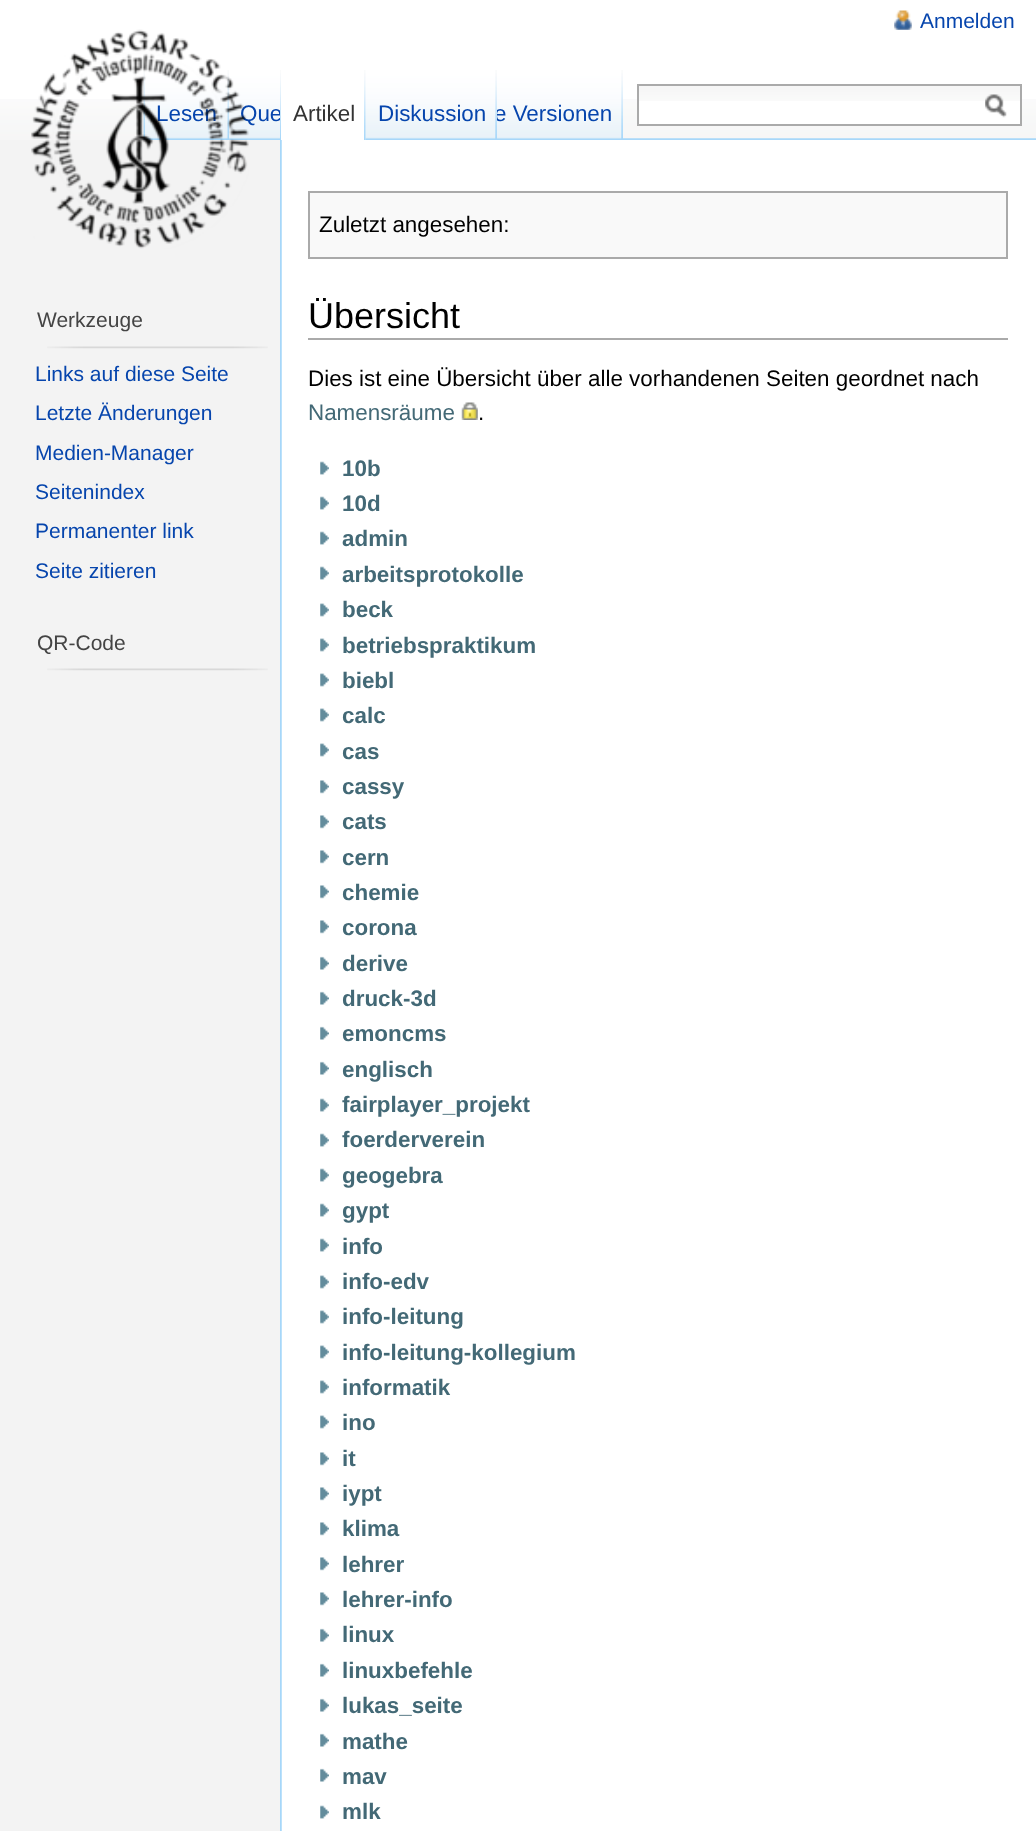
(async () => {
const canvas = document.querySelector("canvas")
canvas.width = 1036
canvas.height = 1831
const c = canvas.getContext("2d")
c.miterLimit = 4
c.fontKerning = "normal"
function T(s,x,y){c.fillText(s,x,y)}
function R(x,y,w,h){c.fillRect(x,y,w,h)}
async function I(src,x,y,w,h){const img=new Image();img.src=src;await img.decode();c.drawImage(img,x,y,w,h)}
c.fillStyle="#f3f3f3"
R(0,0,1036,1831)
c.fillStyle="#fff"
R(0,0,1036,99)
await I("1.png",0,99,1036,41)
await I("2.png",894,10,18,20)
c.font="21px Liberation Sans"
c.fillStyle="#0645ad"
T("Anmelden",920,28)
await I("3.png",143,70,3,70)
await I("4.png",145,70,85,70)
await I("5.png",227,70,3,70)
c.font="22.4px Liberation Sans"
T("Lesen",156,121)
await I("6.png",229,70,52,70)
T("Que",240,121)
await I("7.png",497,70,126,70)
await I("8.png",621,70,2,69)
T("e Versionen",494,121)
c.fillStyle="#fff"
R(639,101,381,23)
await I("9.png",639,86,381,15)
c.strokeStyle="#aaa"
c.lineWidth=2
c.strokeRect(638,85,383,40)
await I("10.png",985,94,22,24)
await I("11.png",280,70,1,69)
R(281,99,85,41)
await I("12.png",364,70,2,70)
c.fillStyle="#333"
T("Artikel",293,121)
await I("13.png",365,70,132,70)
await I("8.png",495,70,2,69)
c.fillStyle="#0645ad"
T("Diskussion",378,121)
await I("14.png",623,138,413,2)
await I("15.png",31,29,218,220)
c.font="21px Liberation Sans"
c.fillStyle="#444"
T("Werkzeuge",37,327)
await I("16.png",47,346,221,3)
c.fillStyle="#0645ad"
T("Links auf diese Seite",35,381)
T("Letzte Änderungen",35,420)
T("Medien-Manager",35,460)
T("Seitenindex",35,499)
T("Permanenter link",35,538)
T("Seite zitieren",35,578)
c.fillStyle="#444"
T("QR-Code",37,650)
await I("16.png",47,668,221,3)
c.fillStyle="#fff"
R(281,140,755,1691)
await I("17.png",280,140,2,1691)
c.fillStyle="#f9f9f9"
c.beginPath()
c.rect(309,192,698,66)
c.fill()
c.stroke()
c.font="22.4px Liberation Sans"
c.fillStyle="#000"
T("Zuletzt angesehen:",319,232)
c.fillStyle="#aaa"
R(308,338,700,2)
c.font="36px Liberation Sans"
c.fillStyle="#000"
T("Übersicht",308,328)
c.font="22.4px Liberation Sans"
T("Dies ist eine Übersicht über alle vorhandenen Seiten geordnet nach",308,386)
c.fillStyle="#436976"
T("Namensräume",308,420)
await I("18.png",461,402,17,18)
c.fillStyle="#000"
T(".",478,420)
await I("19.png",320,461,9,14)
c.font="bold 22.4px Liberation Sans"
c.fillStyle="#436976"
T("10b",342,476)
await I("19.png",320,496,9,14)
T("10d",342,511)
await I("19.png",320,531,9,14)
T("admin",342,546)
await I("19.png",320,566,9,14)
T("arbeitsprotokolle",342,582)
await I("20.png",320,603,9,14)
T("beck",342,617)
await I("20.png",320,638,9,14)
T("betriebspraktikum",342,653)
await I("20.png",320,673,9,14)
T("biebl",342,688)
await I("20.png",320,708,9,14)
T("calc",342,723)
await I("20.png",320,743,9,14)
T("cas",342,759)
await I("21.png",320,780,9,14)
T("cassy",342,794)
await I("21.png",320,815,9,14)
T("cats",342,829)
await I("21.png",320,850,9,14)
T("cern",342,865)
await I("21.png",320,885,9,14)
T("chemie",342,900)
await I("21.png",320,920,9,14)
T("corona",342,935)
await I("22.png",320,956,9,14)
T("derive",342,971)
await I("22.png",320,991,9,14)
T("druck-3d",342,1006)
await I("22.png",320,1026,9,14)
T("emoncms",342,1041)
await I("22.png",320,1061,9,14)
T("englisch",342,1077)
await I("19.png",320,1098,9,14)
T("fairplayer_projekt",342,1112)
await I("19.png",320,1133,9,14)
T("foerderverein",342,1147)
await I("19.png",320,1168,9,14)
T("geogebra",342,1183)
await I("19.png",320,1203,9,14)
T("gypt",342,1218)
await I("19.png",320,1238,9,14)
T("info",342,1254)
await I("20.png",320,1275,9,14)
T("info-edv",342,1289)
await I("20.png",320,1310,9,14)
T("info-leitung",342,1324)
await I("20.png",320,1345,9,14)
T("info-leitung-kollegium",342,1360)
await I("20.png",320,1380,9,14)
T("informatik",342,1395)
await I("20.png",320,1415,9,14)
T("ino",342,1430)
await I("21.png",320,1452,9,14)
T("it",342,1466)
await I("21.png",320,1487,9,14)
T("iypt",342,1501)
await I("21.png",320,1522,9,14)
T("klima",342,1536)
await I("21.png",320,1557,9,14)
T("lehrer",342,1572)
await I("21.png",320,1592,9,14)
T("lehrer-info",342,1607)
await I("22.png",320,1628,9,14)
T("linux",342,1642)
await I("22.png",320,1663,9,14)
T("linuxbefehle",342,1678)
await I("22.png",320,1698,9,14)
T("lukas_seite",342,1713)
await I("22.png",320,1733,9,14)
T("mathe",342,1749)
await I("22.png",320,1768,9,14)
T("mav",342,1784)
await I("23.png",320,1805,9,14)
T("mlk",342,1819)
})()
